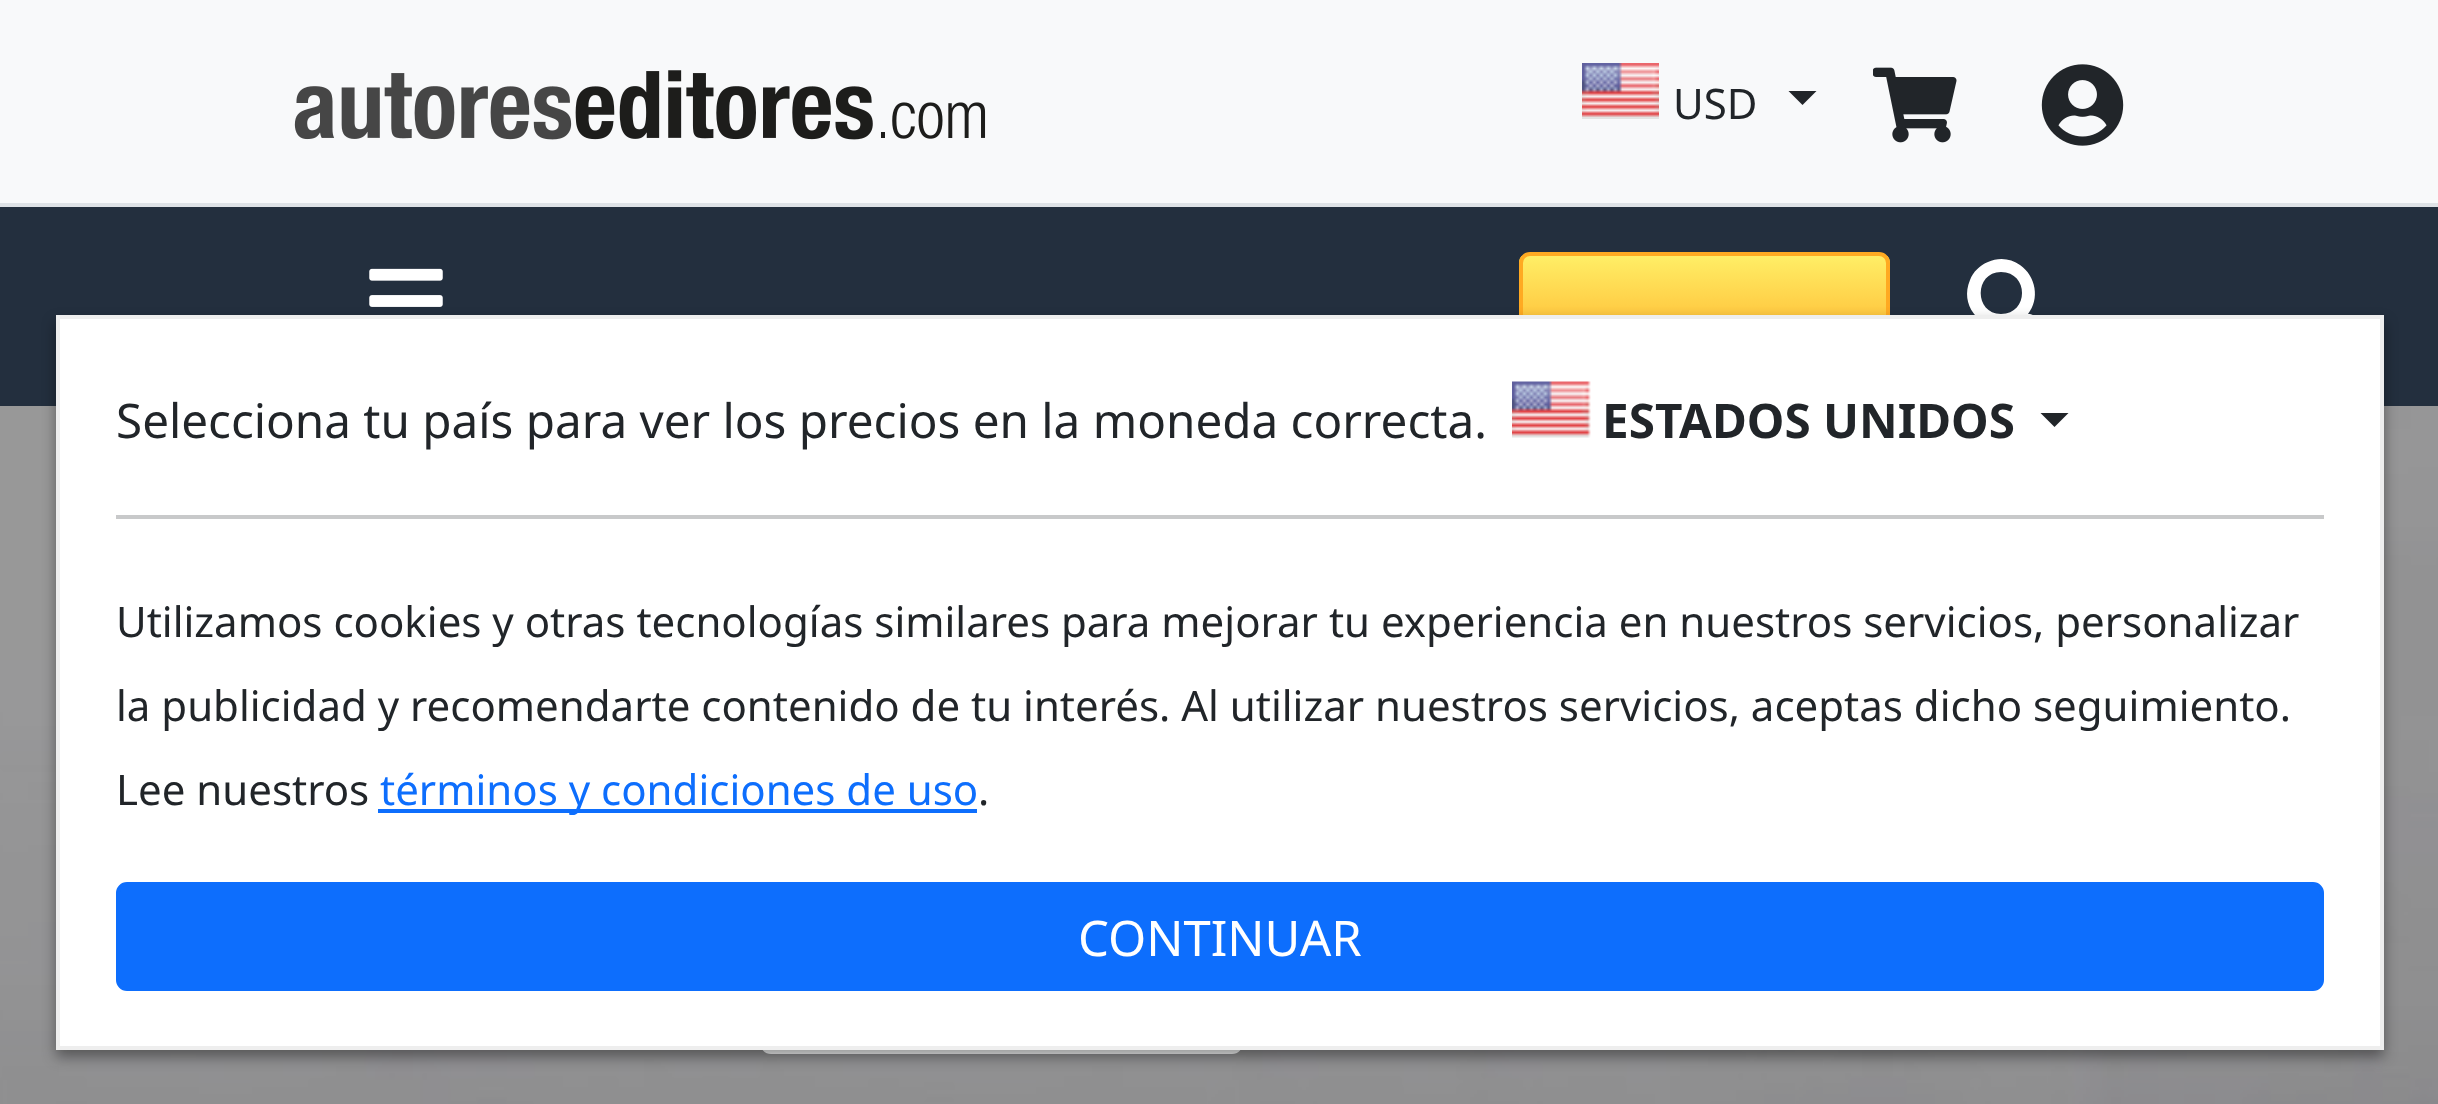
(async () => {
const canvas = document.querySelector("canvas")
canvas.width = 2438
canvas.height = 1104
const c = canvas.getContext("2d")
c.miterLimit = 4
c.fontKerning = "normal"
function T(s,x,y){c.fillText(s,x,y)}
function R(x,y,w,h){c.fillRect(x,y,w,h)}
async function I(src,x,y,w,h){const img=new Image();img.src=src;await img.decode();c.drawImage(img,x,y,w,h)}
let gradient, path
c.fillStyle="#f8f9fa"
R(0,0,2438,1104)
c.fillStyle="#dee2e6"
R(0,203,2438,4)
await I("1.png",294,70,692,70)
await I("2.png",1582,63,77,56)
c.font="42px Noto Sans"
c.fillStyle="#212529"
T("USD",1673,119)
path = new Path2D("M1788.5 91h28l-14 14z")
c.fill(path)
await I("3.png",1873,67,84,76)
await I("4.png",2041,64,83,82)
c.fillStyle="#232f3e"
R(0,207,2438,199)
await I("5.png",369,268,74,39)
c.save()
c.beginPath()
c.roundRect(1519,252,371,109,11)
c.clip()
gradient = c.createLinearGradient(1705,357,1705,256)
gradient.addColorStop(0,"#fa2")
gradient.addColorStop(.5,"#ffcf47")
gradient.addColorStop(1,"#fe6")
c.fillStyle = gradient
R(1519,256,371,59)
c.restore()
c.beginPath()
c.roundRect(1521,254,367,105,9)
c.strokeStyle="#fa2"
c.lineWidth=4
c.stroke()
c.fillStyle="#fff"
path = new Path2D("M2050 332l-11-11c-5-5-5-7-11-7c12-15 8-38-8-49c-9-7-22-8-32-3c-8 3-15 10-18 18c-14 33 25 61 52 40c0 6 2 6 7 11l8 8c5 5 6 5 11 1c2-3 5-5 2-8zm-49-18c-27 0-27-42 0-42c28 0 28 42 0 42z")
c.fill(path)
await I("7.png",0,406,2438,698)
c.beginPath()
c.roundRect(762,947,479,105,9)
c.strokeStyle="#f8f9fa"
c.stroke()
c.fillStyle="#00000066"
c.filter="blur(7px)"
c.beginPath()
c.rect(56,322,2328,735)
c.fill()
c.filter="none"
c.fillStyle="#fff"
c.beginPath()
c.rect(58,317,2324,731)
c.fill()
c.strokeStyle="#eee"
c.stroke()
c.font="47.6px Noto Sans"
c.fillStyle="#212529"
T("Selecciona tu país para ver los precios en la moneda correcta.",116,438)
await I("6.png",1512,381,79,57)
c.font="bold 47.6px Noto Sans"
T("ESTADOS UNIDOS",1602,438)
path = new Path2D("M2040.5 413h28l-14 14z")
c.fill(path)
c.fillStyle="#c8c9ca"
R(116,515,2208,4)
c.font="42px Noto Sans"
c.fillStyle="#212529"
T("Utilizamos cookies y otras tecnologías similares para mejorar tu experiencia en nuestros servicios, personalizar",116,637)
T("la publicidad y recomendarte contenido de tu interés. Al utilizar nuestros servicios, aceptas dicho seguimiento.",116,721)
T("Lee nuestros",116,805)
c.fillStyle="#0d6efd"
R(378,809,599,4)
T("términos y condiciones de uso",380,805)
c.fillStyle="#212529"
T(".",978,805)
c.fillStyle="#0d6efd"
c.beginPath()
c.roundRect(118,884,2204,105,9)
c.fill()
c.strokeStyle="#0d6efd"
c.stroke()
c.font="49px Noto Sans"
c.fillStyle="#fff"
T("CONTINUAR",1078,956)
})()
